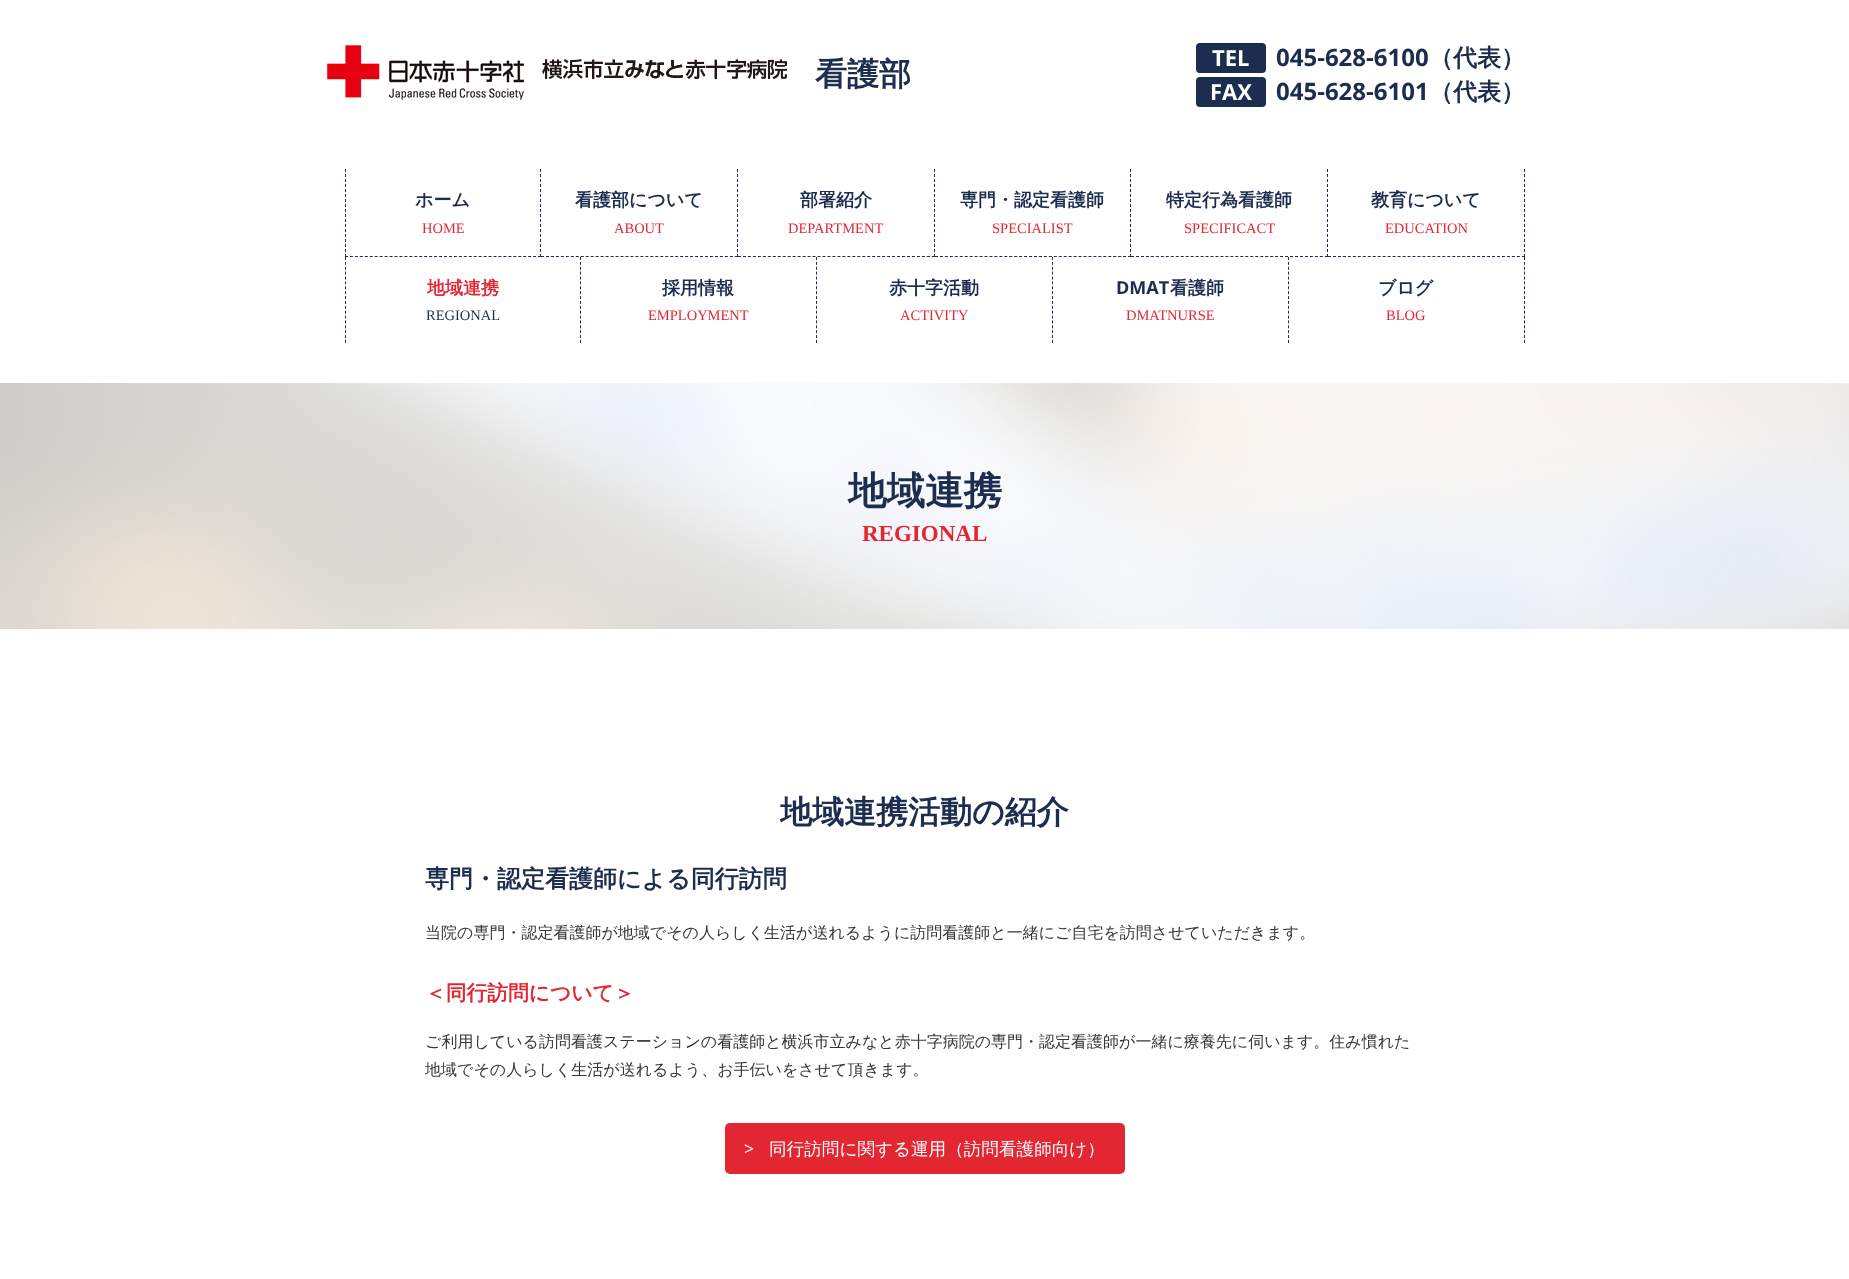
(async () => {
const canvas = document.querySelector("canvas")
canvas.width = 1849
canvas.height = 1279
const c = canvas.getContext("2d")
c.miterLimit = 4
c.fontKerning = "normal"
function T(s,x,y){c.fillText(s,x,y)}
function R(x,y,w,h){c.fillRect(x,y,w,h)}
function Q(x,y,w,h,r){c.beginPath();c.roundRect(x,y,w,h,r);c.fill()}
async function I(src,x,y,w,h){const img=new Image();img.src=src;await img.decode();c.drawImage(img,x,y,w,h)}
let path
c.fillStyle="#fff"
R(0,0,1849,1279)
await I("1.png",327,45,460,55)
c.font="bold 32px WenQuanYi Zen Hei"
c.fillStyle="#1d2d4f"
T("看護部",815,85)
Q(1196,43,70,30,4)
c.font="bold 22px Open Sans"
c.fillStyle="#fff"
T("TEL",1212,66)
c.font="bold 24px Open Sans"
c.fillStyle="#1d2d4f"
T("045-628-6100",1276,66)
c.font="bold 24px WenQuanYi Zen Hei"
T("（代表）",1429,66)
Q(1196,77,70,30,4)
c.font="bold 22px Open Sans"
c.fillStyle="#fff"
T("FAX",1210,100)
c.font="bold 24px Open Sans"
c.fillStyle="#1d2d4f"
T("045-628-6101",1276,100)
c.font="bold 24px WenQuanYi Zen Hei"
T("（代表）",1429,100)
path = new Path2D("M540.5 169v88")
c.strokeStyle="#1d2d4f"
c.setLineDash([3,2])
c.stroke(path)
path = new Path2D("M345 256.5h196")
c.setLineDash([3,1.95])
c.stroke(path)
path = new Path2D("M345.5 169v88")
c.setLineDash([3,2])
c.stroke(path)
c.font="bold 18px WenQuanYi Zen Hei"
T("ホーム",415,206)
c.font="14.5px Liberation Serif"
c.fillStyle="#e22732"
T("HOME",422,233)
path = new Path2D("M737.5 169v88")
c.stroke(path)
path = new Path2D("M541 256.5h197")
c.setLineDash([3,1.97])
c.stroke(path)
c.font="bold 18px WenQuanYi Zen Hei"
c.fillStyle="#1d2d4f"
T("看護部について",575,206)
c.font="14.5px Liberation Serif"
c.fillStyle="#e22732"
T("ABOUT",614,233)
path = new Path2D("M934.5 169v88")
c.setLineDash([3,2])
c.stroke(path)
path = new Path2D("M738 256.5h197")
c.setLineDash([3,1.97])
c.stroke(path)
c.font="bold 18px WenQuanYi Zen Hei"
c.fillStyle="#1d2d4f"
T("部署紹介",800,206)
c.font="14.5px Liberation Serif"
c.fillStyle="#e22732"
T("DEPARTMENT",788,233)
path = new Path2D("M1130.5 169v88")
c.setLineDash([3,2])
c.stroke(path)
path = new Path2D("M935 256.5h196")
c.setLineDash([3,1.95])
c.stroke(path)
c.font="bold 18px WenQuanYi Zen Hei"
c.fillStyle="#1d2d4f"
T("専門・認定看護師",960,206)
c.font="14.5px Liberation Serif"
c.fillStyle="#e22732"
T("SPECIALIST",992,233)
path = new Path2D("M1327.5 169v88")
c.setLineDash([3,2])
c.stroke(path)
path = new Path2D("M1131 256.5h197")
c.setLineDash([3,1.97])
c.stroke(path)
c.font="bold 18px WenQuanYi Zen Hei"
c.fillStyle="#1d2d4f"
T("特定行為看護師",1166,206)
c.font="14.5px Liberation Serif"
c.fillStyle="#e22732"
T("SPECIFICACT",1184,233)
path = new Path2D("M1524.5 169v88")
c.setLineDash([3,2])
c.stroke(path)
path = new Path2D("M1328 256.5h197")
c.setLineDash([3,1.97])
c.stroke(path)
c.font="bold 18px WenQuanYi Zen Hei"
c.fillStyle="#1d2d4f"
T("教育について",1371,206)
c.font="14.5px Liberation Serif"
c.fillStyle="#e22732"
T("EDUCATION",1385,233)
path = new Path2D("M580.5 257v86")
c.setLineDash([3,1.88])
c.stroke(path)
path = new Path2D("M345.5 257v86")
c.stroke(path)
c.font="bold 18px WenQuanYi Zen Hei"
T("地域連携",427,294)
c.font="14.5px Liberation Serif"
c.fillStyle="#1d2d4f"
T("REGIONAL",426,320)
path = new Path2D("M816.5 257v86")
c.stroke(path)
c.font="bold 18px WenQuanYi Zen Hei"
T("採用情報",662,294)
c.font="14.5px Liberation Serif"
c.fillStyle="#e22732"
T("EMPLOYMENT",648,320)
path = new Path2D("M1052.5 257v86")
c.stroke(path)
c.font="bold 18px WenQuanYi Zen Hei"
c.fillStyle="#1d2d4f"
T("赤十字活動",889,294)
c.font="14.5px Liberation Serif"
c.fillStyle="#e22732"
T("ACTIVITY",900,320)
path = new Path2D("M1288.5 257v86")
c.stroke(path)
c.font="bold 18px Open Sans"
c.fillStyle="#1d2d4f"
T("DMAT",1116,294)
c.font="bold 18px WenQuanYi Zen Hei"
T("看護師",1170,294)
c.font="14.5px Liberation Serif"
c.fillStyle="#e22732"
T("DMATNURSE",1126,320)
path = new Path2D("M1524.5 257v86")
c.stroke(path)
c.font="bold 18px WenQuanYi Zen Hei"
c.fillStyle="#1d2d4f"
T("ブログ",1378,294)
c.font="14.5px Liberation Serif"
c.fillStyle="#e22732"
T("BLOG",1386,320)
await I("2.png",0,383,1849,246)
c.font="bold 38.5px WenQuanYi Zen Hei"
c.fillStyle="#1d2d4f"
T("地域連携",848,504)
c.font="bold 23px Liberation Serif"
c.fillStyle="#e22732"
T("REGIONAL",862,541)
c.font="bold 32px WenQuanYi Zen Hei"
c.fillStyle="#1d2d4f"
T("地域連携活動の紹介",780,823)
c.font="bold 24px WenQuanYi Zen Hei"
T("専門・認定看護師による同行訪問",425,887)
c.font="500 16px WenQuanYi Zen Hei"
c.fillStyle="#353535"
T("当院の専門・認定看護師が地域でその人らしく生活が送れるように訪問看護師と一緒にご自宅を訪問させていただきます。",425,938)
c.font="bold 20.75px WenQuanYi Zen Hei"
c.fillStyle="#e22732"
T("＜同行訪問について＞",425,1000)
c.font="500 16px WenQuanYi Zen Hei"
c.fillStyle="#353535"
T("ご利用している訪問看護ステーションの看護師と横浜市立みなと赤十字病院の専門・認定看護師が一緒に療養先に伺います。住み慣れた",425,1047)
T("地域でその人らしく生活が送れるよう、お手伝いをさせて頂きます。",425,1075)
c.fillStyle="#e22732"
Q(725,1123,400,51,5)
c.font="17.6px Open Sans"
c.fillStyle="#fff"
T(">",744,1155)
c.font="500 17.6px WenQuanYi Zen Hei"
T("同行訪問に関する運用（訪問看護師向け）",769,1155)
})()
